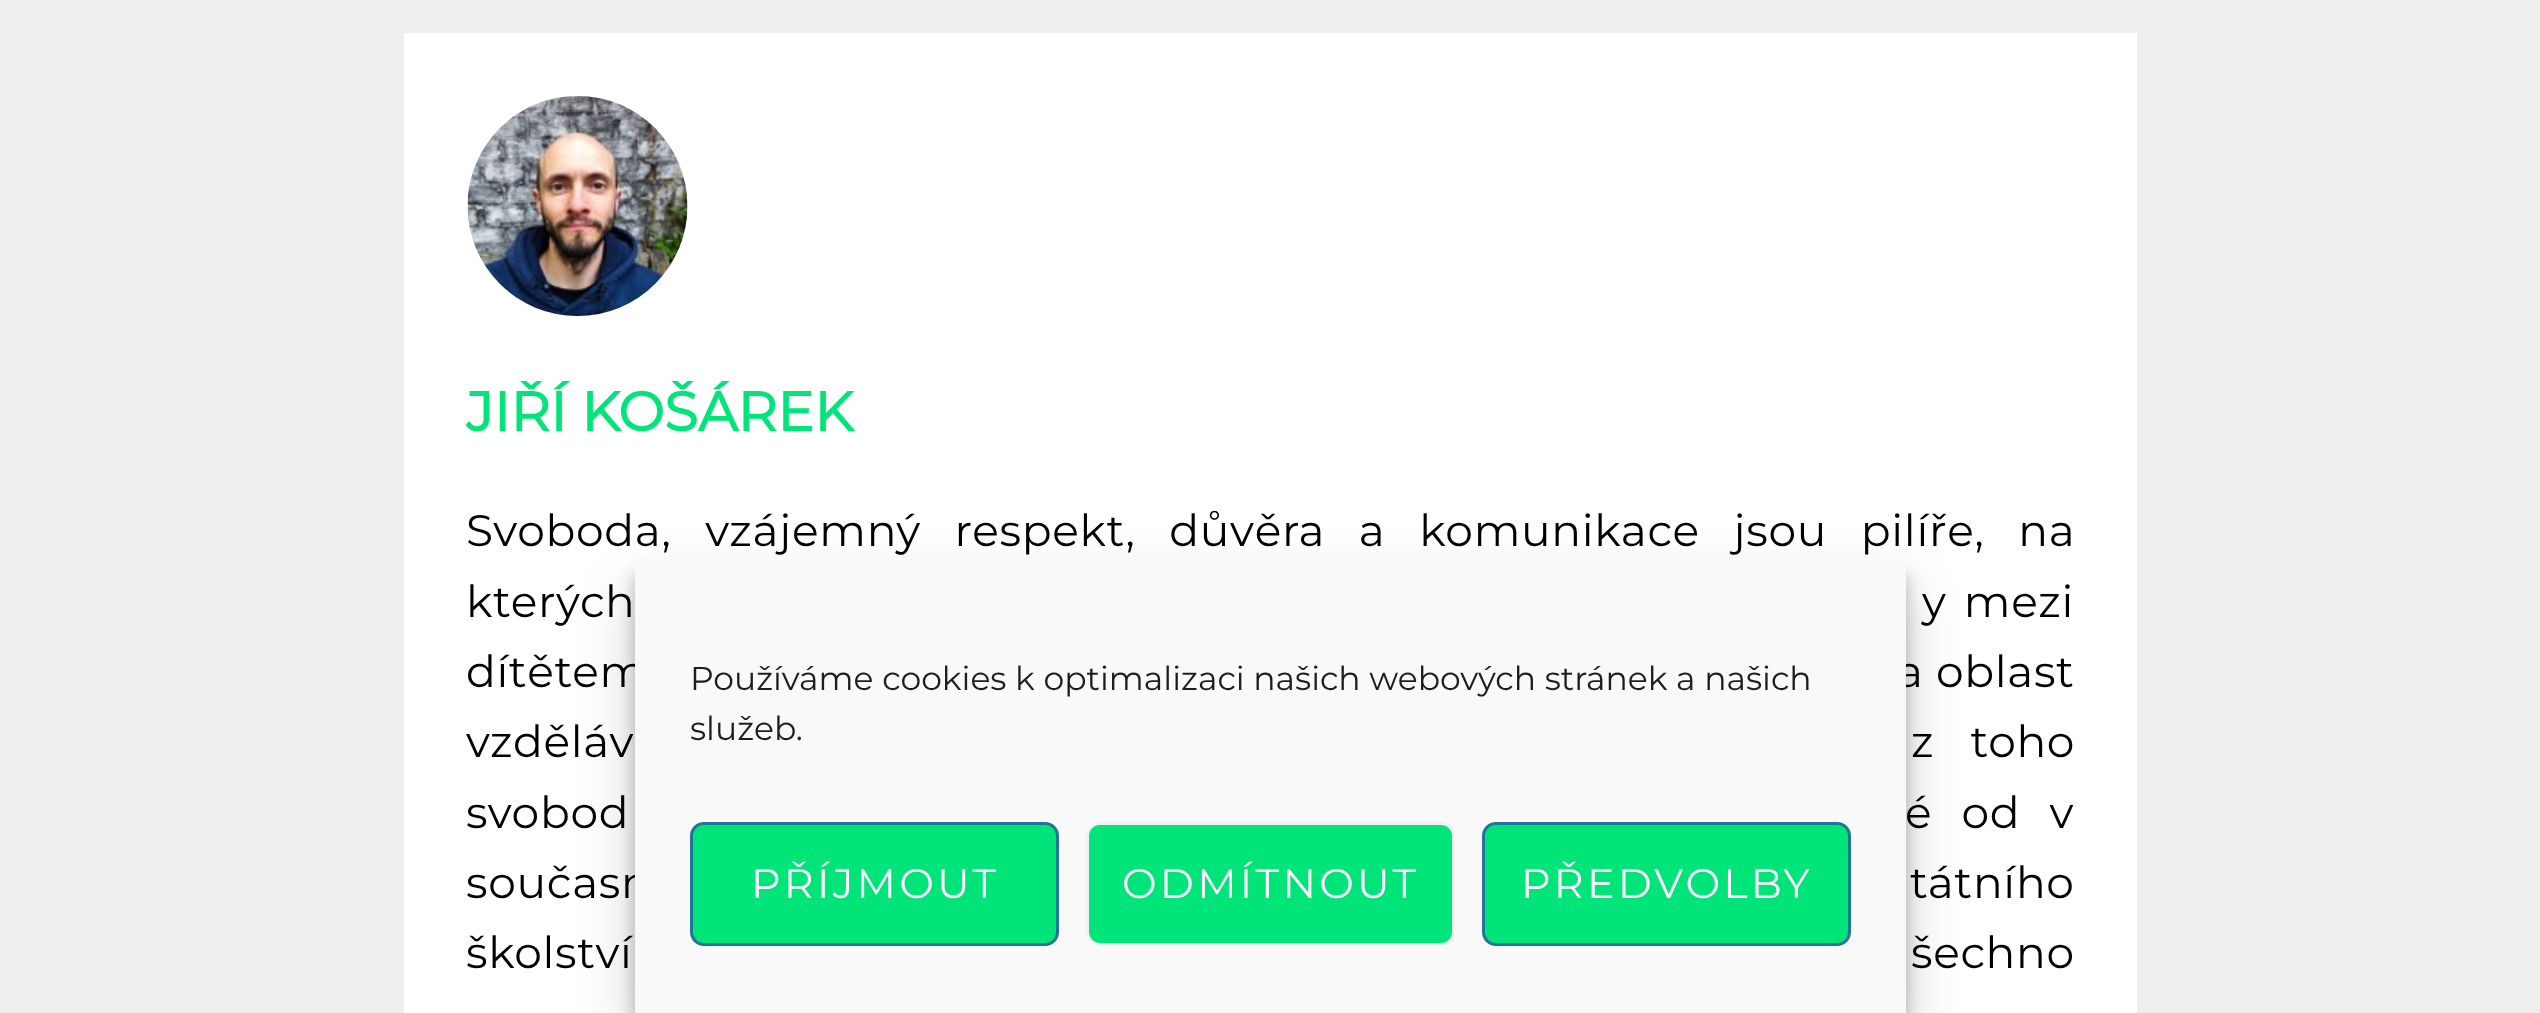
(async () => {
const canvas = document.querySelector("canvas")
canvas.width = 2540
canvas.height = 1013
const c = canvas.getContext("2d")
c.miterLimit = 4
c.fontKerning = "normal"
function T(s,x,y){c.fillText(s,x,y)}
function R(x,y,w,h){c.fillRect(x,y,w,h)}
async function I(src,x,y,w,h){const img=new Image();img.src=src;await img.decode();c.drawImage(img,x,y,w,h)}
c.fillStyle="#eee"
R(0,0,2540,1013)
c.fillStyle="#fff"
R(404,33,1733,980)
await I("1.png",467,96,221,220)
c.font="bold 55px Montserrat"
c.fillStyle="#01e47a"
T("JIŘÍ KOŠÁREK",466,431)
c.letterSpacing="0.7px"
c.wordSpacing="21.5px"
c.font="100 44px Montserrat"
c.fillStyle="#000"
T("Svoboda, vzájemný respekt, důvěra a komunikace jsou pilíře, na",466,546)
c.wordSpacing="5px"
T("kterých",466,617)
T("y mezi",1922,617)
c.wordSpacing="0px"
T("dítětem",466,687)
T("a oblast",1897,687)
c.wordSpacing="24px"
T("vzděláv",466,757)
T("z toho",1911,757)
c.wordSpacing="17px"
T("svobod",466,828)
T("é od v",1905,828)
c.wordSpacing="37px"
T("současn",466,898)
T("tátního",1910,898)
c.wordSpacing="0px"
T("školství",466,968)
c.wordSpacing="5px"
T("šechno",1911,968)
c.fillStyle="#0000003b"
c.filter="blur(8px)"
c.beginPath()
c.rect(635,575,1271,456)
c.fill()
c.filter="none"
c.fillStyle="#00000030"
c.filter="blur(27.5px)"
c.beginPath()
c.rect(635,586,1271,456)
c.fill()
c.filter="none"
c.fillStyle="#f9f9f9"
R(635,558,1271,455)
c.letterSpacing="0px"
c.wordSpacing="0px"
c.font="100 33px Montserrat"
c.fillStyle="#191e23"
T("Používáme cookies k optimalizaci našich webových stránek a našich",690,690)
T("služeb.",690,740)
c.fillStyle="#01e47a"
c.beginPath()
c.roundRect(691.5,823.5,366,121,12.5)
c.fill()
c.strokeStyle="#21759b"
c.lineWidth=3
c.stroke()
c.letterSpacing="3.25px"
c.font="100 41.25px Montserrat"
c.fillStyle="#fff"
T("PŘÍJMOUT",751,898)
c.fillStyle="#01e47a"
c.beginPath()
c.roundRect(1087.5,823.5,366,121,12.5)
c.fill()
c.strokeStyle="#f1f1f1"
c.stroke()
c.fillStyle="#fff"
T("ODMÍTNOUT",1122,898)
c.fillStyle="#01e47a"
c.beginPath()
c.roundRect(1483.5,823.5,366,121,12.5)
c.fill()
c.strokeStyle="#21759b"
c.stroke()
c.fillStyle="#fff"
T("PŘEDVOLBY",1521,898)
})()
